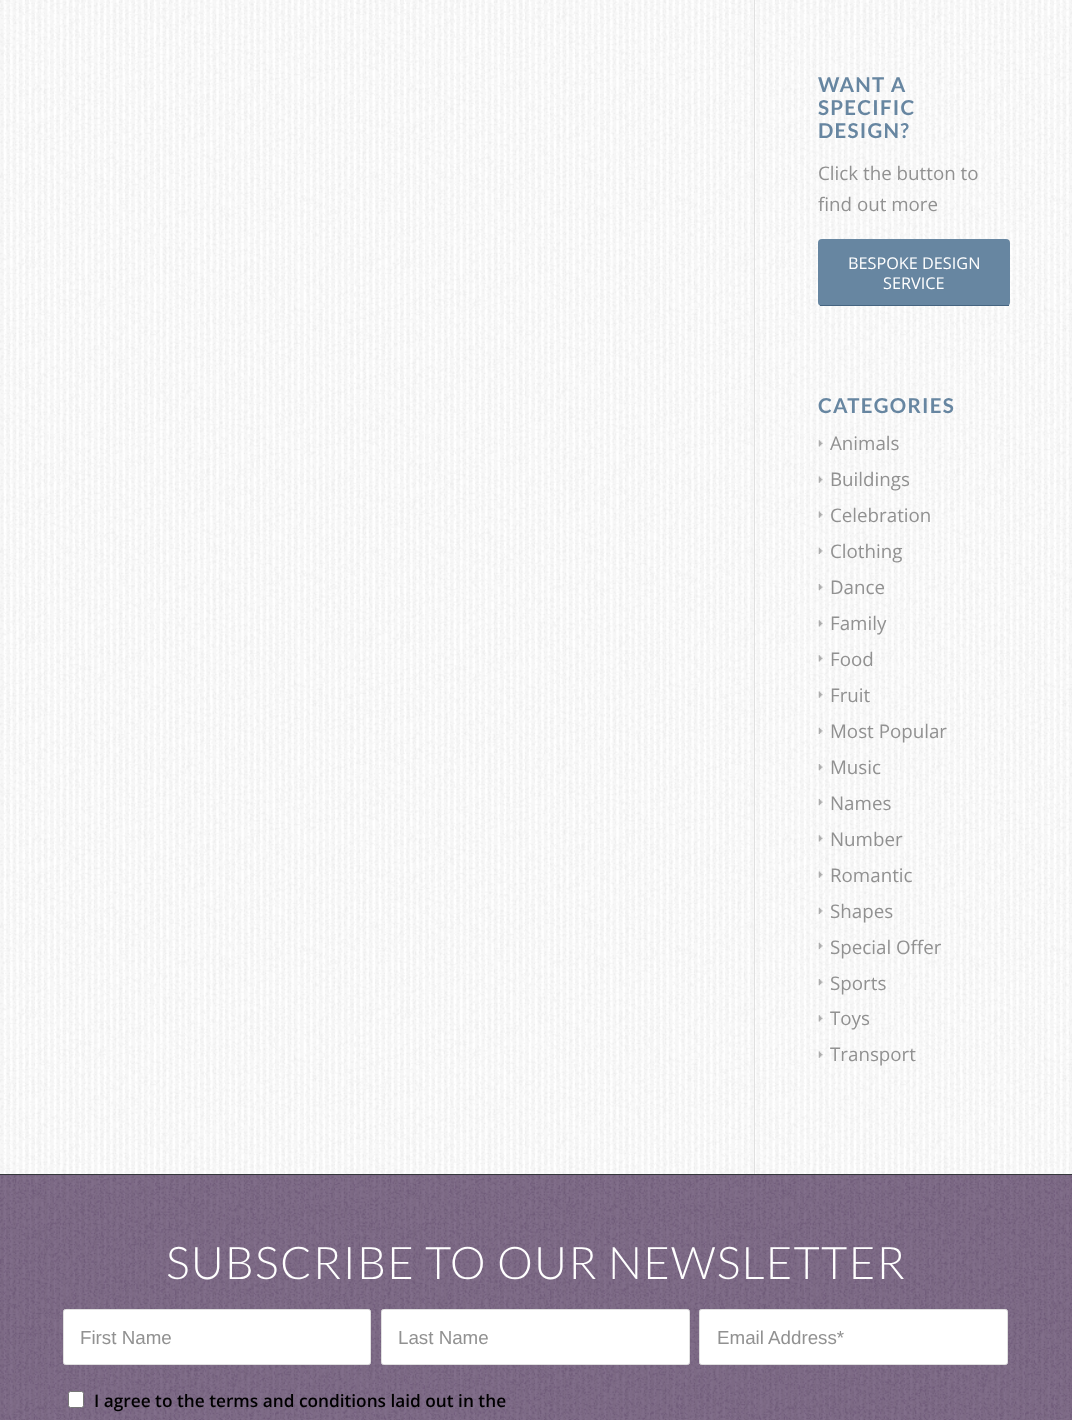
(async () => {
const canvas = document.querySelector("canvas")
canvas.width = 1072
canvas.height = 1420
const c = canvas.getContext("2d")
c.miterLimit = 4
c.fontKerning = "normal"
function T(s,x,y){c.fillText(s,x,y)}
function R(x,y,w,h){c.fillRect(x,y,w,h)}
function Q(x,y,w,h,r){c.beginPath();c.roundRect(x,y,w,h,r);c.fill()}
async function I(src,x,y,w,h){const img=new Image();img.src=src;await img.decode();c.drawImage(img,x,y,w,h)}
c.fillStyle="#fff"
R(0,0,1072,1420)
await I("1.png",0,0,1072,1174)
c.fillStyle="#e0e0e0"
R(754,0,1,1174)
c.letterSpacing="1.25px"
c.font="bold 20.5px Lato"
c.fillStyle="#6786a1"
T("WANT A",818,92)
T("SPECIFIC",818,115)
T("DESIGN?",818,138)
c.letterSpacing="0px"
c.font="18.75px Open Sans"
c.fillStyle="#919191"
T("Click the button to",818,180)
T("find out more",818,211)
c.fillStyle="#6786a1"
Q(818,239,192,67,4)
c.fillStyle="#456480"
R(820,305,189,1)
c.font="16.25px Open Sans"
c.fillStyle="#fff"
T("BESPOKE DESIGN",848,269)
T("SERVICE",883,289)
c.letterSpacing="1.25px"
c.font="bold 20.5px Lato"
c.fillStyle="#6786a1"
T("CATEGORIES",818,413)
await I("2.png",818,440,5,7)
c.letterSpacing="0px"
c.font="18.75px Open Sans"
c.fillStyle="#919191"
T("Animals",830,450)
await I("3.png",818,476,5,7)
T("Buildings",830,486)
await I("4.png",818,511,5,7)
T("Celebration",830,522)
await I("5.png",818,547,5,7)
T("Clothing",830,558)
await I("6.png",818,584,5,7)
T("Dance",830,594)
await I("7.png",818,620,5,7)
T("Family",830,630)
await I("8.png",818,655,5,7)
T("Food",830,666)
await I("9.png",818,691,5,7)
T("Fruit",830,702)
await I("10.png",818,727,5,7)
T("Most Popular",830,738)
await I("11.png",818,764,5,7)
T("Music",830,774)
await I("12.png",818,799,5,7)
T("Names",830,810)
await I("13.png",818,835,5,7)
T("Number",830,846)
await I("14.png",818,871,5,7)
T("Romantic",830,882)
await I("15.png",818,907,5,7)
T("Shapes",830,918)
await I("16.png",818,942,5,7)
T("Special Offer",830,954)
await I("17.png",818,979,5,7)
T("Sports",830,990)
await I("18.png",818,1015,5,7)
T("Toys",830,1025)
await I("19.png",818,1051,5,7)
T("Transport",830,1061)
c.fillStyle="#35383c"
R(0,1174,1072,1)
c.fillStyle="#745f7e"
R(0,1175,1072,245)
await I("20.png",0,1175,1072,245)
c.letterSpacing="1.25px"
c.font="300 45px Lato"
c.fillStyle="#fff"
T("SUBSCRIBE TO OUR NEWSLETTER",166,1279)
c.beginPath()
c.roundRect(63.5,1309.5,307,55,2)
c.fill()
c.strokeStyle="#e0e0e0"
c.stroke()
c.letterSpacing="0px"
c.font="18.75px Liberation Sans"
c.fillStyle="#919191"
T("First Name",80,1344)
c.fillStyle="#fff"
c.beginPath()
c.roundRect(381.5,1309.5,308,55,2)
c.fill()
c.stroke()
c.fillStyle="#919191"
T("Last Name",398,1344)
c.fillStyle="#fff"
c.beginPath()
c.roundRect(699.5,1309.5,308,55,2)
c.fill()
c.stroke()
c.fillStyle="#919191"
T("Email Address*",717,1344)
c.fillStyle="#fff"
c.beginPath()
c.roundRect(68.5,1391.5,15,16,2)
c.fill()
c.strokeStyle="#767676"
c.stroke()
c.font="600 17.25px Open Sans"
c.fillStyle="#000"
T("I agree to the terms and conditions laid out in the",94,1407)
})()
